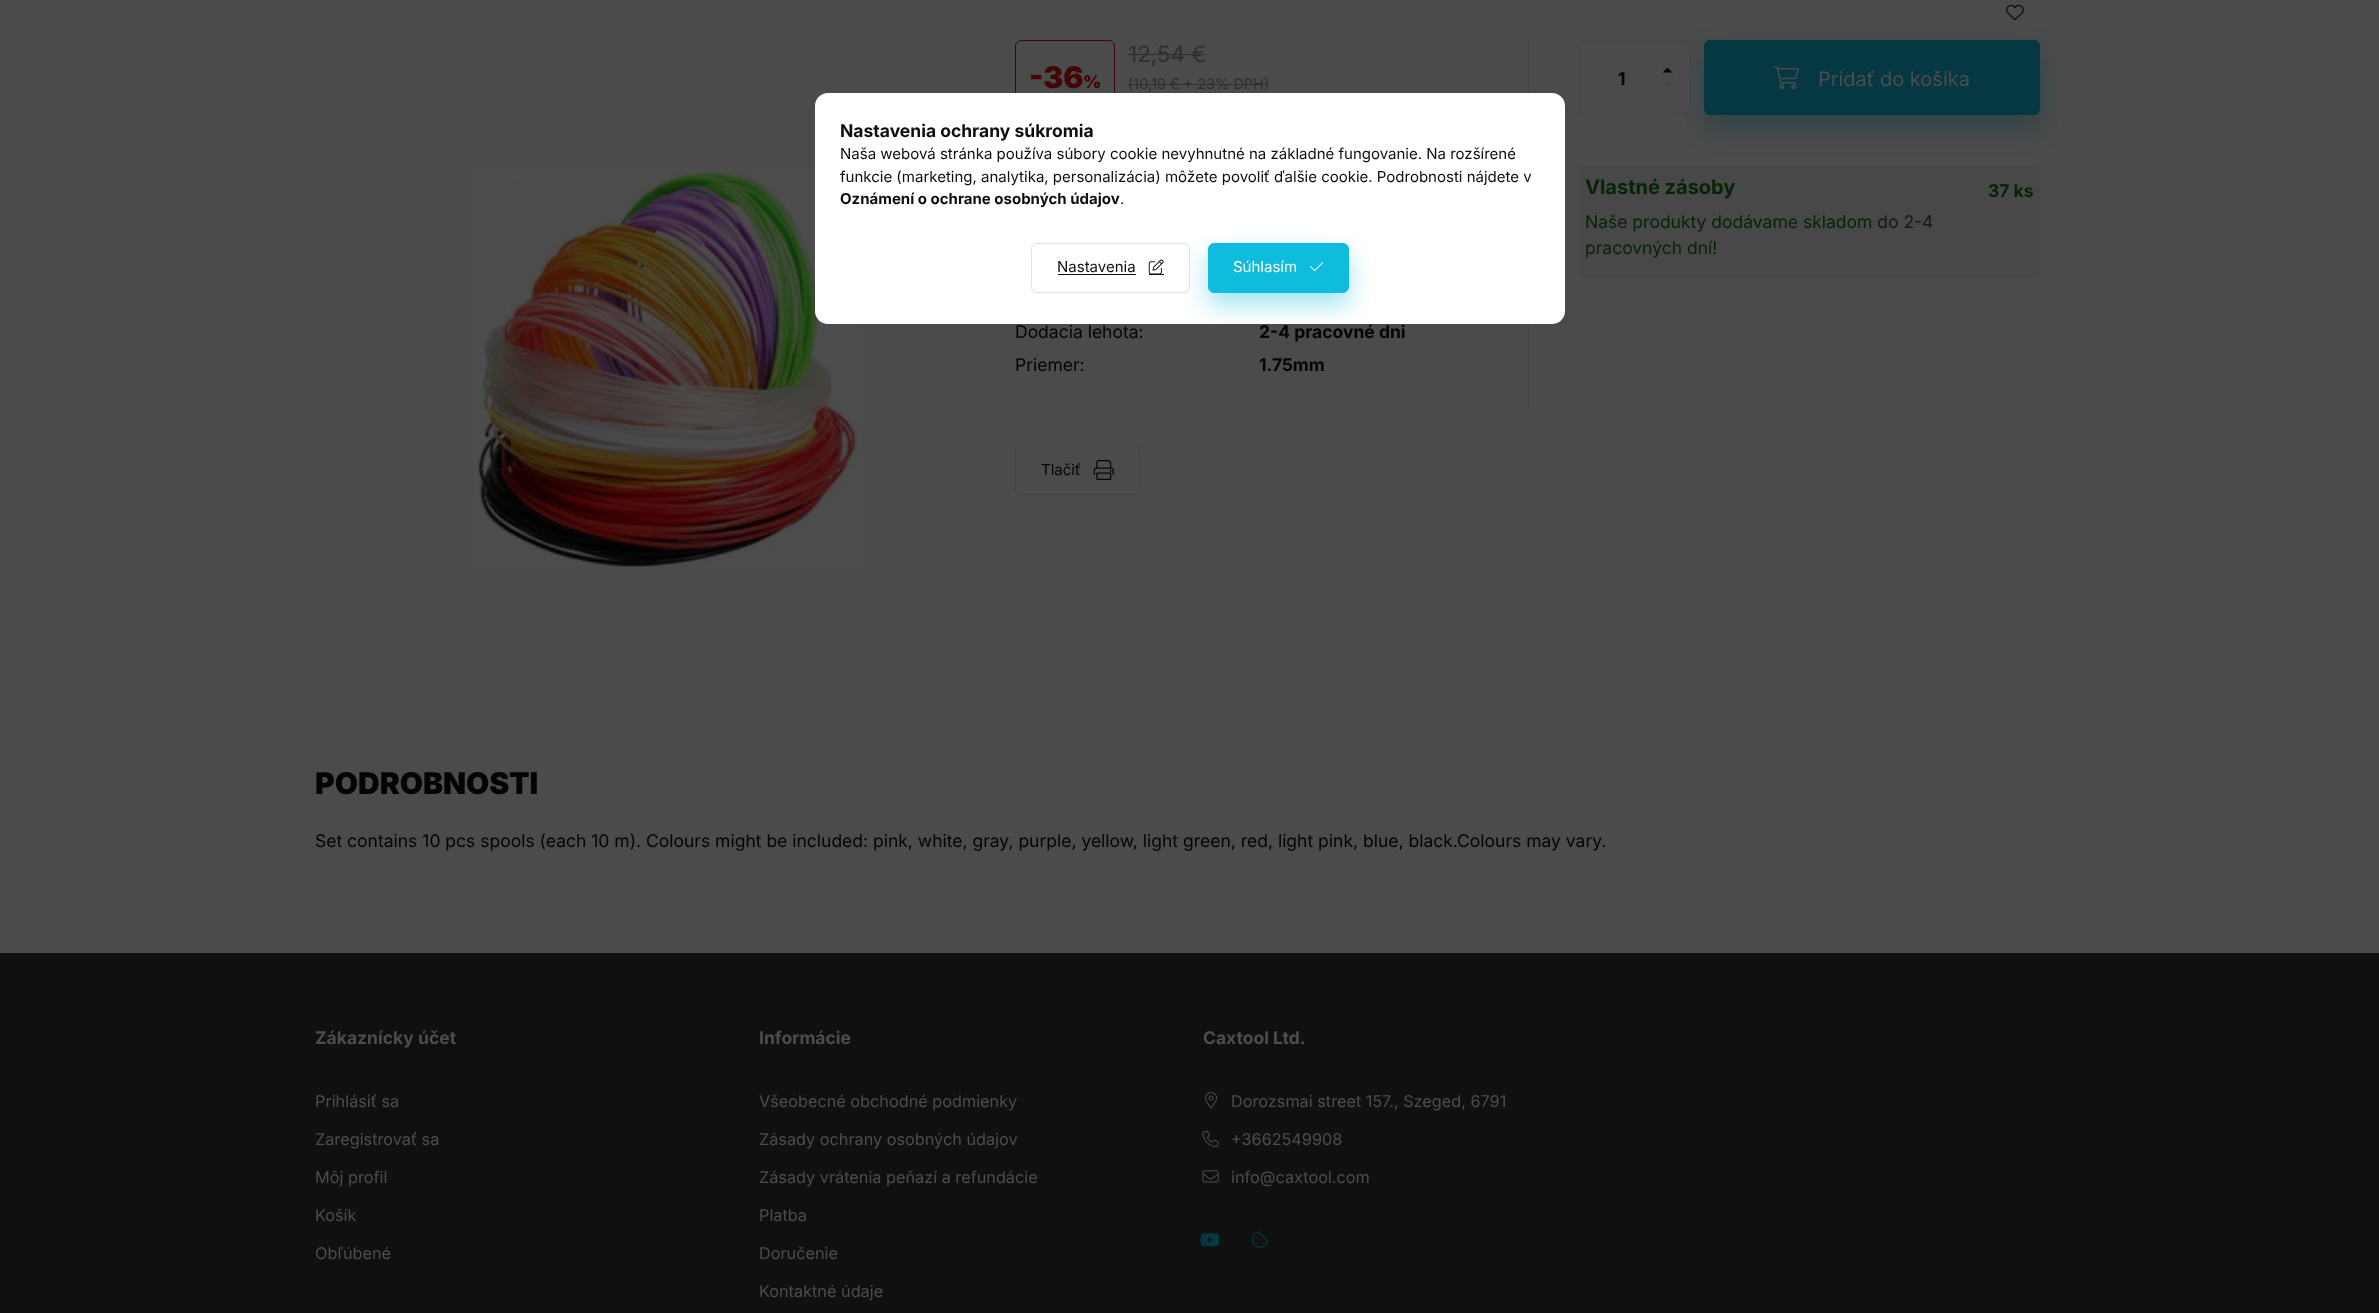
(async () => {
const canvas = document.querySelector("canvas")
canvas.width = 2379
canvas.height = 1313
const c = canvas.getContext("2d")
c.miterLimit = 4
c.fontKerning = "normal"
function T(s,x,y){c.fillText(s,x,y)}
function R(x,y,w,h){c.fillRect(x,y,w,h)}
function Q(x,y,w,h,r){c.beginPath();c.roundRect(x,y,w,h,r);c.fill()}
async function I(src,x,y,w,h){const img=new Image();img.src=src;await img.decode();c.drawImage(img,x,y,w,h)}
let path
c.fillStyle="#4b4b4b"
R(0,0,2379,1313)
c.beginPath()
c.roundRect(1579.5,40.5,111,74,5.5)
c.strokeStyle="#444"
c.stroke()
c.fillStyle="#040405"
path = new Path2D("M1672.5 72.5h-10l5-5z")
c.fill(path)
c.fillStyle="#424242"
path = new Path2D("M1662.5 82.5h10l-5 5z")
c.fill(path)
c.fillStyle="#484848"
Q(1579,165,461,114,6)
c.fillStyle="#05384366"
c.filter="blur(12.5px)"
c.beginPath()
c.roundRect(1704,53,336,75,6)
c.fill()
c.filter="none"
await I("1.png",2006,4,18,16)
await I("2.png",474,169,387,401)
c.beginPath()
c.roundRect(1015.5,40.5,99,74,5.5)
c.strokeStyle="#430505"
c.stroke()
c.font="900 30px Inter"
c.fillStyle="#430505"
T("-36",1029,88)
c.font="900 17.5px Inter"
T("%",1083,88)
c.font="22.5px Inter"
c.fillStyle="#2e2e2e"
T("12,54 €",1128,62)
R(1128,54,78,1)
c.font="14.5px Inter"
T("(10,19 € + 23% DPH)",1128,89)
R(1128,84,140,1)
c.font="17.5px Inter"
c.fillStyle="#040405"
T("Dodacia lehota:",1015,338)
c.font="bold 17.5px Inter"
T("2-4 pracovné dni",1259,338)
c.font="17.5px Inter"
T("Priemer:",1015,371)
c.font="bold 17.5px Inter"
T("1.75mm",1259,371)
c.fillStyle="#444"
R(1528,40,1,368)
c.fillStyle="#040405"
T("1",1618,85)
c.fillStyle="#053843"
Q(1704,40,336,75,6)
await I("3.png",1773,66,26,23)
c.font="20px Inter"
c.fillStyle="#4d4d4d"
T("Pridať do košíka",1818,86)
c.font="bold 20px Inter"
c.fillStyle="#062306"
T("Vlastné zásoby",1585,194)
c.font="bold 17.5px Inter"
T("37 ks",1988,197)
c.font="17.5px Inter"
T("Naše produkty dodávame skladom do 2-4",1585,228)
T("pracovných dní!",1585,254)
c.beginPath()
c.roundRect(1015.5,445.5,124,49,5.5)
c.strokeStyle="#444"
c.stroke()
c.font="15px Inter"
c.fillStyle="#040405"
T("Tlačiť",1041,475)
await I("4.png",1093,460,21,20)
c.font="900 30px Inter"
T("PODROBNOSTI",315,794)
c.font="17.5px Inter"
T("Set contains 10 pcs spools (each 10 m). Colours might be included: pink, white, gray, purple, yellow, light green, red, light pink, blue, black.Colours may vary.",315,847)
c.fillStyle="#101010"
R(0,953,2379,360)
c.font="bold 17.5px Inter"
c.fillStyle="#4d4d4d"
T("Zákaznícky účet",315,1044)
c.font="16.25px Inter"
T("Prihlásiť sa",315,1107)
T("Zaregistrovať sa",315,1145)
T("Môj profil",315,1183)
T("Košík",315,1221)
T("Obľúbené",315,1259)
c.font="bold 17.5px Inter"
T("Informácie",759,1044)
c.font="16.25px Inter"
T("Všeobecné obchodné podmienky",759,1107)
T("Zásady ochrany osobných údajov",759,1145)
T("Zásady vrátenia peňazí a refundácie",759,1183)
T("Platba",759,1221)
T("Doručenie",759,1259)
T("Kontaktné údaje",759,1297)
c.font="bold 17.5px Inter"
T("Caxtool Ltd.",1203,1044)
await I("5.png",1205,1092,13,17)
c.font="16.25px Inter"
T("Dorozsmai street 157., Szeged, 6791",1231,1107)
await I("6.png",1202,1130,17,17)
T("+3662549908",1231,1145)
await I("7.png",1202,1170,17,13)
T("info@caxtool.com",1231,1183)
await I("8.png",1200,1233,20,14)
await I("9.png",1251,1231,18,17)
c.fillStyle="#fff"
Q(815,93,750,231,13)
c.font="bold 17.5px Inter"
c.fillStyle="#0e0e0f"
T("Nastavenia ochrany súkromia",840,137)
c.font="15px Inter"
T("Naša webová stránka používa súbory cookie nevyhnutné na základné fungovanie. Na rozšírené",840,159)
T("funkcie (marketing, analytika, personalizácia) môžete povoliť ďalšie cookie. Podrobnosti nájdete v",840,182)
c.font="bold 15px Inter"
T("Oznámení o ochrane osobných údajov",840,204)
c.font="15px Inter"
T(".",1120,204)
c.beginPath()
c.roundRect(1031.5,243.5,158,49,5.5)
c.strokeStyle="#e1e1e1"
c.stroke()
T("Nastavenia",1057,272)
R(1058,274,78,1)
await I("10.png",1148,259,16,15)
R(1149,274,15,1)
c.save()
c.beginPath()
c.roundRect(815,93,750,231,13)
c.clip()
c.fillStyle="#10bcde66"
c.filter="blur(12.5px)"
c.beginPath()
c.roundRect(1208,255,141,50,6)
c.fill()
c.filter="none"
c.restore()
c.fillStyle="#10bcde"
c.beginPath()
c.roundRect(1208.5,243.5,140,49,5.5)
c.fill()
c.strokeStyle="#10bcde"
c.stroke()
c.fillStyle="#fff"
T("Súhlasím",1233,272)
await I("11.png",1310,262,14,9)
})()
